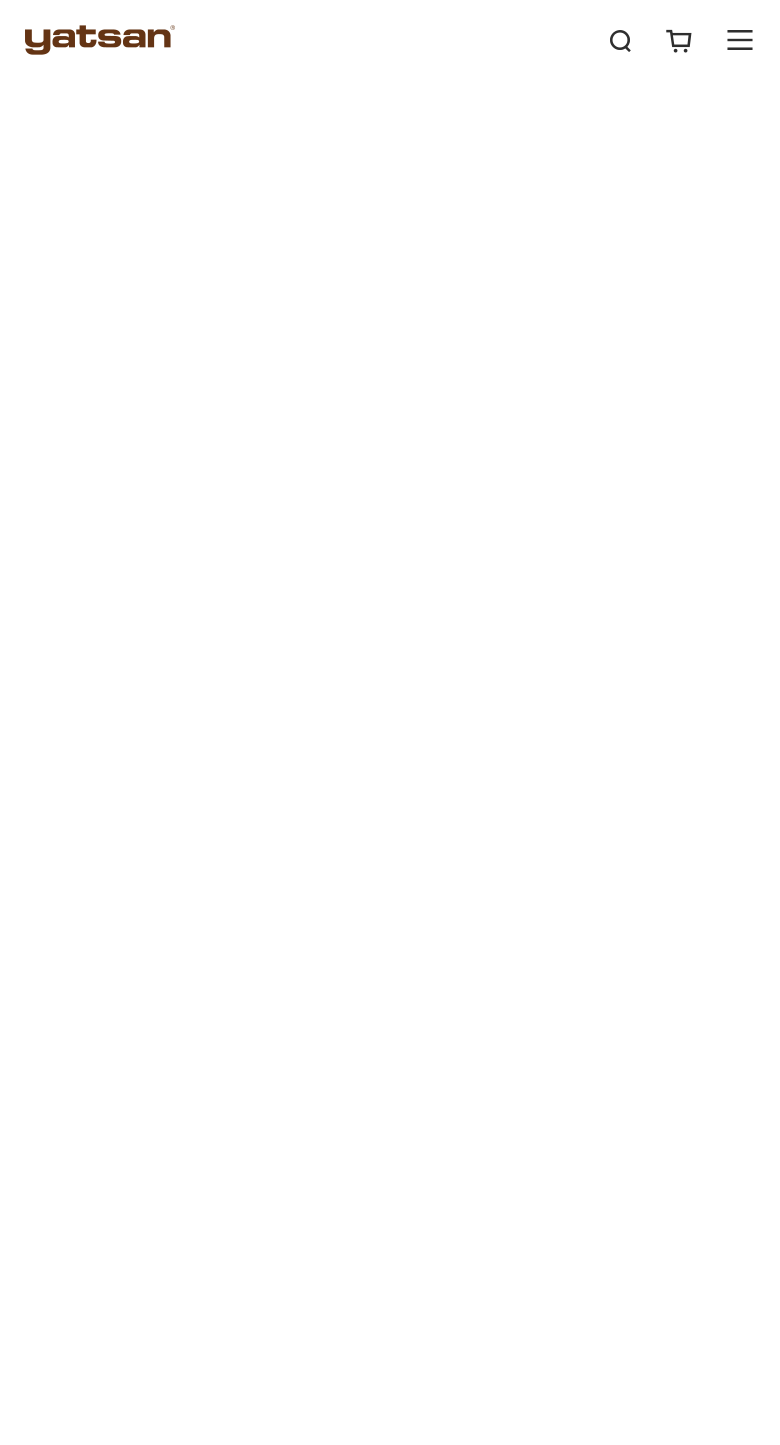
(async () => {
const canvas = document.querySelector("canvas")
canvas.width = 780
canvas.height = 1445
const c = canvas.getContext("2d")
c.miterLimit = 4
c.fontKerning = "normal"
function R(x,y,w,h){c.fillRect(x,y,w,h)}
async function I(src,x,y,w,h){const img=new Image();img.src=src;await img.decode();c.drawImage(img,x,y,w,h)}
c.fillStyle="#fff"
R(0,0,780,1445)
await I("1.png",25,25,150,30)
await I("2.png",610,30,21,22)
await I("3.png",666,29,26,24)
await I("4.png",727,30,26,20)
})()
